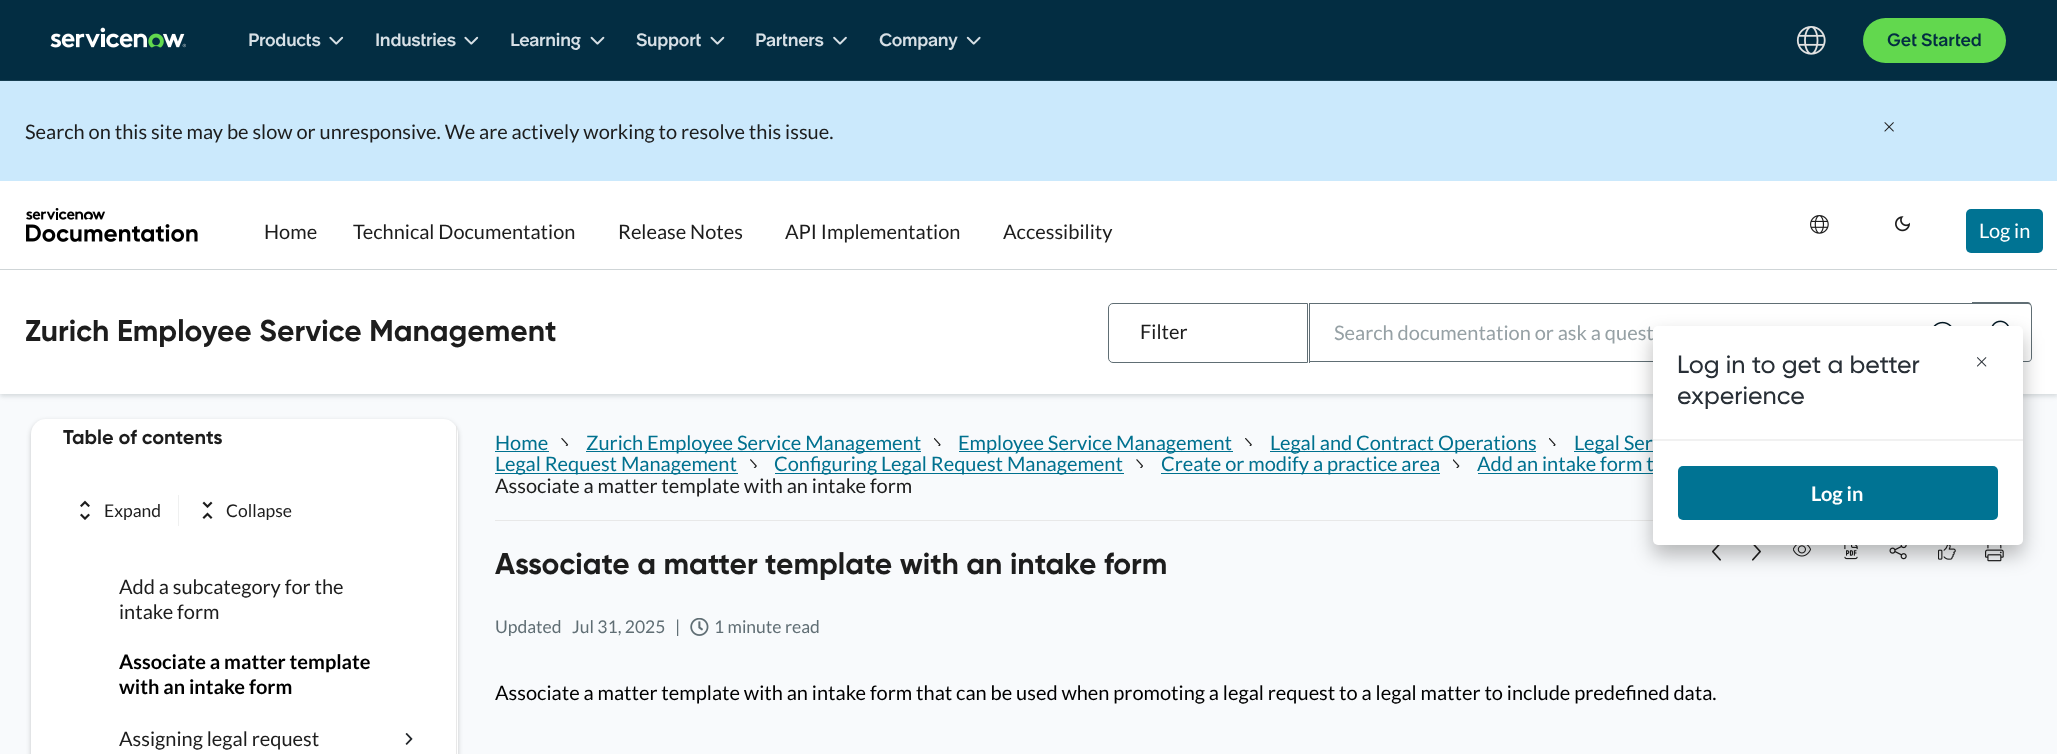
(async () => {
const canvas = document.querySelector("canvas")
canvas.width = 2057
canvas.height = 754
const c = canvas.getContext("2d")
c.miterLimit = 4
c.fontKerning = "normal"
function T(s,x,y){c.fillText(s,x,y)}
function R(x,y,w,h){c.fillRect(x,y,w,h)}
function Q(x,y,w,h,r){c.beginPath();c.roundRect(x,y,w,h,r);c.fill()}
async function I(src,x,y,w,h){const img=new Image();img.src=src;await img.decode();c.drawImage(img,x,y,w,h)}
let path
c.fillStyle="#cbe9fc"
R(0,0,2057,754)
c.fillStyle="#032d42"
R(0,0,2057,80)
c.fillStyle="#173e51"
R(0,80,2057,1)
await I("1.png",50,27,136,21)
c.letterSpacing="-0.25px"
c.font="17.5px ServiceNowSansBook"
c.fillStyle="#d7e0e6"
T("Products",248,46)
await I("2.png",329,36,15,9)
T("Industries",375,46)
await I("3.png",464,36,15,9)
T("Learning",510,46)
await I("4.png",590,36,15,9)
T("Support",636,46)
await I("5.png",710,36,15,9)
T("Partners",755,46)
await I("6.png",833,36,14,9)
T("Company",879,46)
await I("7.png",966,36,15,9)
await I("8.png",1796,26,30,29)
c.fillStyle="#62d84e"
Q(1863,18,143,45,22.5)
c.letterSpacing="0px"
c.fillStyle="#032d42"
T("Get Started",1887,46)
c.font="20px Lato"
c.fillStyle="#1d1d1d"
T("Search on this site may be slow or unresponsive. We are actively working to resolve this issue.",25,139)
await I("9.png",1884,122,10,10)
c.fillStyle="#f8fafc"
R(0,394,2057,360)
c.fillStyle="#606e7440"
c.filter="blur(2.5px)"
c.beginPath()
c.rect(0,271,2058,125)
c.fill()
c.filter="none"
c.fillStyle="#fff"
R(0,181,2057,88)
await I("10.png",26,208,172,34)
c.fillStyle="#1d1d1d"
T("Home",264,239)
T("Technical Documentation",353,239)
T("Release Notes",618,239)
T("API Implementation",785,239)
T("Accessibility",1003,239)
await I("11.png",1810,215,19,19)
await I("12.png",1895,216,15,16)
c.fillStyle="#007393"
Q(1966,209,77,44,5)
c.fillStyle="#fff"
T("Log in",1979,238)
R(0,270,2057,124)
c.fillStyle="#cfd5d7"
R(0,269,2057,1)
c.font="bold 30px Gilroy"
c.fillStyle="#1d1d1d"
T("Zurich Employee Service Management",25,341)
c.beginPath()
c.roundRect(1108.5,303.5,199,59,[4.5,0,0,4.5])
c.strokeStyle="#606e74"
c.stroke()
c.font="20px Lato"
T("Filter",1140,339)
c.fillStyle="#606e74"
R(1309,303,664,1)
await I("13.png",1933,321,19,5)
path = new Path2D("M1972 302h56c2 0 4 3 4 6v50c0 2-2 4-4 4h-56zm0 2h56c2 0 3 1 3 4v50c0 2-1 3-3 3h-56z")
c.fill(path,"evenodd")
await I("14.png",1991,320,18,6)
R(1309,361,344,1)
R(1309,303,1,60)
c.fillStyle="#96a1a5"
T("Search documentation or ask a quest",1334,340)
c.fillStyle="#00000033"
c.filter="blur(2.5px)"
c.beginPath()
c.roundRect(31,421,427,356,15)
c.fill()
c.filter="none"
c.fillStyle="#fff"
Q(31,419,427,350,15)
c.fillStyle="#e8e8e8"
R(456,426,1,328)
c.font="bold 20px Gilroy"
c.fillStyle="#1d1d1d"
T("Table of contents",63,444)
await I("15.png",80,500,10,20)
c.font="17.5px Lato"
T("Expand",104,517)
c.fillStyle="#eff0f0"
R(178,495,1,31)
await I("16.png",202,501,11,18)
c.fillStyle="#1d1d1d"
T("Collapse",226,517)
c.font="20px Lato"
T("Add a subcategory for the",119,594)
T("intake form",119,619)
c.font="bold 20px Lato"
c.fillStyle="#000"
T("Associate a matter template",119,669)
T("with an intake form",119,694)
c.font="20px Lato"
c.fillStyle="#1d1d1d"
T("Assigning legal request",119,746)
await I("17.png",405,733,8,12)
c.fillStyle="#e8e8e8"
R(495,520,1158,1)
c.fillStyle="#00718f"
T("Home",495,450)
R(495,451,54,1)
await I("18.png",561,438,8,8)
R(586,451,335,1)
T("Zurich Employee Service Management",586,450)
await I("19.png",934,438,7,8)
R(959,451,274,1)
T("Employee Service Management",958,450)
await I("20.png",1245,438,7,8)
R(1270,451,266,1)
T("Legal and Contract Operations",1270,450)
await I("19.png",1549,438,7,8)
R(1574,451,79,1)
T("Legal Ser",1574,450)
R(495,473,243,1)
T("Legal Request Management",495,471)
await I("21.png",750,459,7,9)
R(775,473,349,1)
T("Configuring Legal Request Management",774,471)
await I("22.png",1136,459,7,9)
R(1161,473,279,1)
T("Create or modify a practice area",1161,471)
await I("23.png",1453,459,7,9)
T("Add an intake form t",1477,471)
R(1478,473,175,1)
c.fillStyle="#1d1d1d"
T("Associate a matter template with an intake form",495,493)
c.font="bold 30px Gilroy"
T("Associate a matter template with an intake form",495,574)
await I("24.png",1712,545,9,16)
await I("25.png",1752,545,9,16)
await I("26.png",1793,545,18,12)
await I("27.png",1844,545,14,15)
await I("28.png",1889,545,18,15)
await I("29.png",1938,545,18,15)
await I("30.png",1985,545,19,17)
c.font="17.5px Lato"
c.fillStyle="#606e74"
T("Updated",495,633)
T("Jul 31, 2025",572,633)
T("|",675,633)
await I("31.png",690,618,19,18)
T("1 minute read",714,633)
c.font="20px Lato"
c.fillStyle="#000"
T("Associate a matter template with an intake form that can be used when promoting a legal request to a legal matter to include predefined data.",495,700)
c.fillStyle="#00000045"
c.filter="blur(10px)"
c.beginPath()
c.roundRect(1653,336,370,219,5)
c.fill()
c.filter="none"
c.fillStyle="#fff"
Q(1653,326,370,219,5)
c.fillStyle="#f1f1f1"
R(1653,439,370,2)
c.font="500 25px Gilroy"
c.fillStyle="#282f36"
T("Log in to get a better",1677,373)
T("experience",1677,404)
await I("32.png",1977,357,10,10)
c.fillStyle="#007393"
Q(1678,466,320,54,5)
c.font="bold 20px Lato"
c.fillStyle="#fff"
T("Log in",1811,501)
})()
